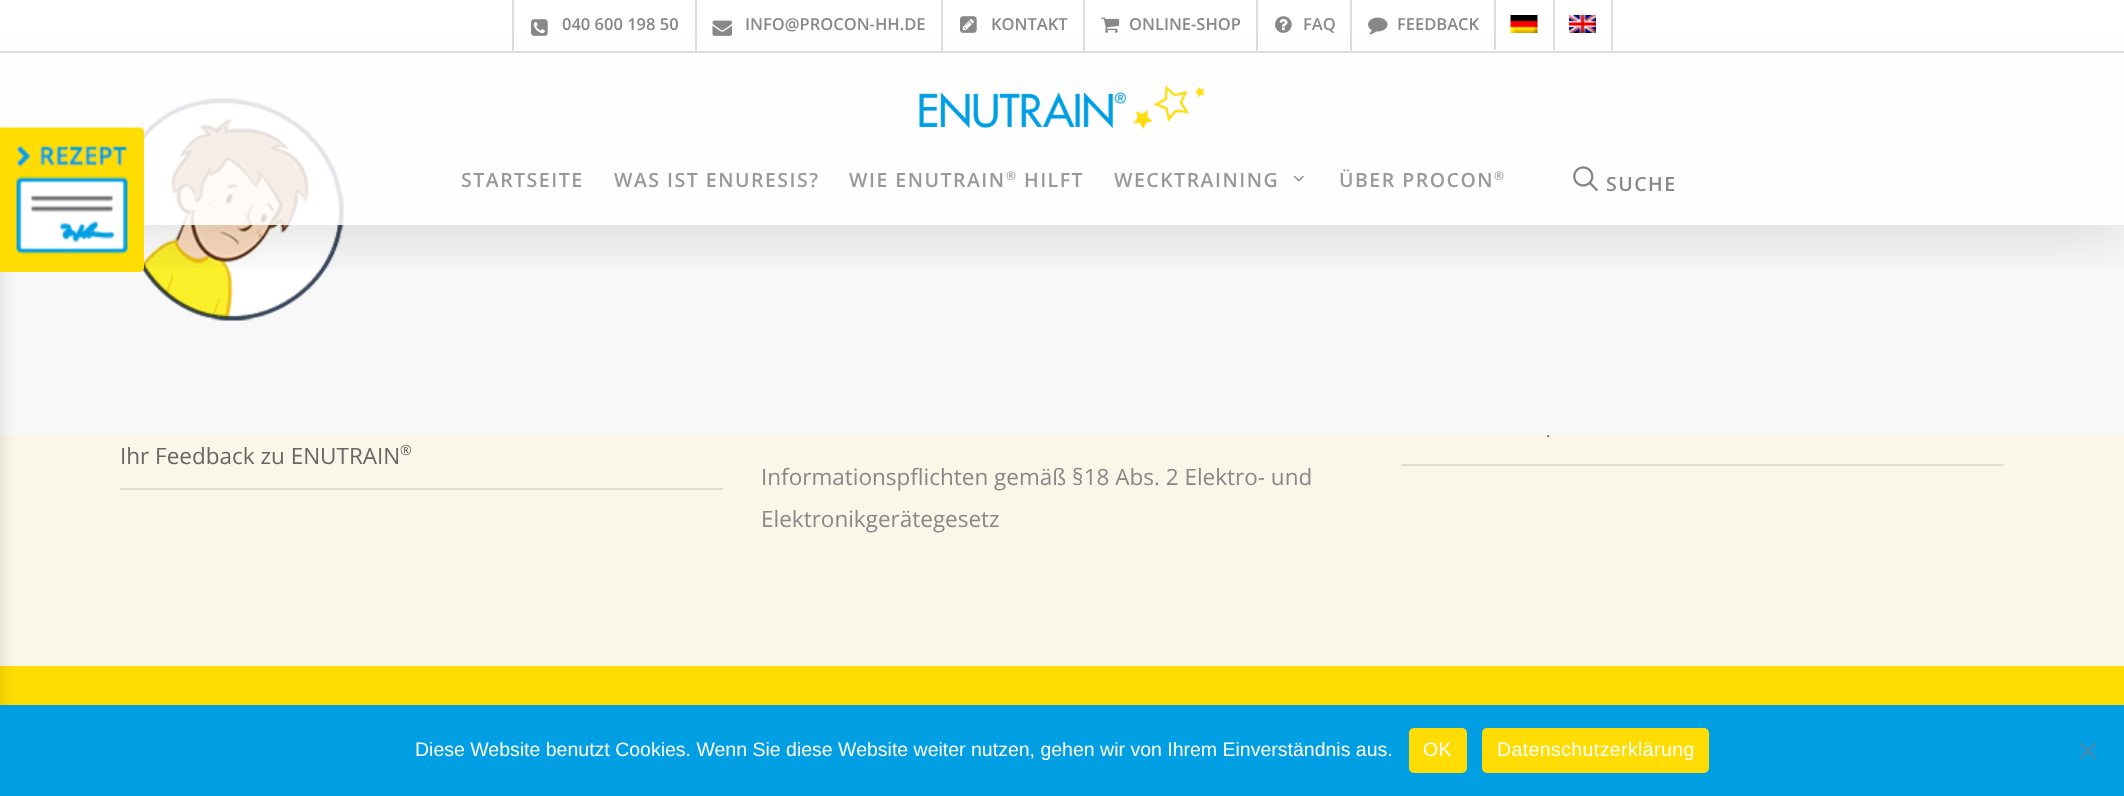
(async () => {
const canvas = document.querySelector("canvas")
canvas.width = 2124
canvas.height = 796
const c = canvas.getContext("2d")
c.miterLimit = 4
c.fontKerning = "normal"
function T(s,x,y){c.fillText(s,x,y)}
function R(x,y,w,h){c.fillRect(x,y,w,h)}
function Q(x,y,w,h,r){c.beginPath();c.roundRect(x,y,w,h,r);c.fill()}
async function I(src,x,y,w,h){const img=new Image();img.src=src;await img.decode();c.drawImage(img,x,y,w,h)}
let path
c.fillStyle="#faf6e8"
R(0,0,2124,796)
c.fillStyle="#f8f8f8"
R(0,38,2124,397)
await I("13.png",142,98,202,223)
await I("14.png",1401,28,93,10)
c.save()
c.beginPath()
c.rect(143,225,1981,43)
c.clip()
c.fillStyle="#00000026"
c.filter="blur(34px)"
c.beginPath()
c.rect(0,5,2124,225)
c.fill()
c.filter="none"
c.restore()
c.fillStyle="#ffffffd9"
R(0,0,2124,225)
c.fillStyle="#ffdd03"
R(0,666,2124,39)
c.fillStyle="#0000001a"
c.filter="blur(7.5px)"
c.beginPath()
c.roundRect(-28,131,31,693,5)
c.fill()
c.filter="none"
c.fillStyle="#ffdd03"
c.beginPath()
c.roundRect(0,128,144,144,[0,5,5,0])
c.fill()
await I("1.png",0,127,144,145)
c.fillStyle="#ffffffd9"
R(0,0,2124,38)
c.fillStyle="#ddd"
R(0,51,2124,2)
R(512,0,2,51)
await I("2.png",531,19,17,17)
c.font="600 16.5px Open Sans"
c.fillStyle="#888"
T("040 600 198 50",562,30)
c.fillStyle="#ddd"
R(695,0,2,51)
await I("3.png",712,20,20,16)
c.fillStyle="#888"
T("INFO@PROCON-HH.DE",745,30)
c.fillStyle="#ddd"
R(941,0,2,51)
await I("4.png",960,16,17,17)
c.fillStyle="#888"
T("KONTAKT",991,30)
c.fillStyle="#ddd"
R(1083,0,2,51)
await I("5.png",1101,17,19,16)
c.fillStyle="#888"
T("ONLINE-SHOP",1129,30)
c.fillStyle="#ddd"
R(1256,0,2,51)
await I("6.png",1275,16,17,17)
c.fillStyle="#888"
T("FAQ",1303,30)
c.fillStyle="#ddd"
R(1350,0,2,51)
await I("7.png",1368,17,20,18)
c.fillStyle="#888"
T("FEEDBACK",1397,30)
c.fillStyle="#ddd"
R(1494,0,2,50)
await I("8.png",1510,15,28,18)
R(1611,0,2,50)
R(1553,0,2,50)
await I("9.png",1569,15,27,18)
await I("10.png",919,85,286,44)
c.letterSpacing="1.5px"
c.font="600 19.5px Open Sans"
c.fillStyle="#999"
T("STARTSEITE",461,187)
T("WAS IST ENURESIS?",614,187)
T("WIE ENUTRAIN",849,187)
c.font="600 12px Open Sans"
T("®",1006,180)
c.font="600 19.5px Open Sans"
T("HILFT",1024,187)
T("WECKTRAINING",1114,187)
await I("11.png",1293,175,11,7)
T("ÜBER PROCON",1339,187)
c.font="600 12px Open Sans"
T("®",1494,180)
await I("12.png",1573,166,25,25)
c.font="600 19.5px Open Sans"
c.fillStyle="#888"
T("SUCHE",1606,191)
c.fillStyle="#e1ddd1"
R(1401,464,603,2)
c.letterSpacing="0px"
c.font="17px Open Sans"
c.fillStyle="#676767"
T(".",1546,437)
c.fillStyle="#e1ddd1"
R(120,488,603,2)
c.font="22.5px Open Sans"
c.fillStyle="#676767"
T("Ihr Feedback zu ENUTRAIN",120,464)
c.font="14px Open Sans"
T("®",400,455)
c.font="22.5px Open Sans"
c.fillStyle="#888"
T("Informationspflichten gemäß §18 Abs. 2 Elektro- und",761,485)
T("Elektronikgerätegesetz",761,527)
c.fillStyle="#009ee3"
R(0,705,2124,91)
c.font="19.5px Liberation Sans"
c.fillStyle="#fff"
T("Diese Website benutzt Cookies. Wenn Sie diese Website weiter nutzen, gehen wir von Ihrem Einverständnis aus.",415,756)
c.fillStyle="#ffdd03"
Q(1409,728,58,45,5)
c.letterSpacing="0.4px"
c.fillStyle="#fff"
T("OK",1423,756)
c.fillStyle="#ffdd03"
Q(1482,728,227,45,5)
c.fillStyle="#fff"
T("Datenschutzerklärung",1497,756)
c.fillStyle="#408fb2"
path = new Path2D("M2095 742l2 2l-16 16l-2-2z")
c.fill(path)
path = new Path2D("M2079 744l2-2l16 16l-2 2z")
c.fill(path)
})()
